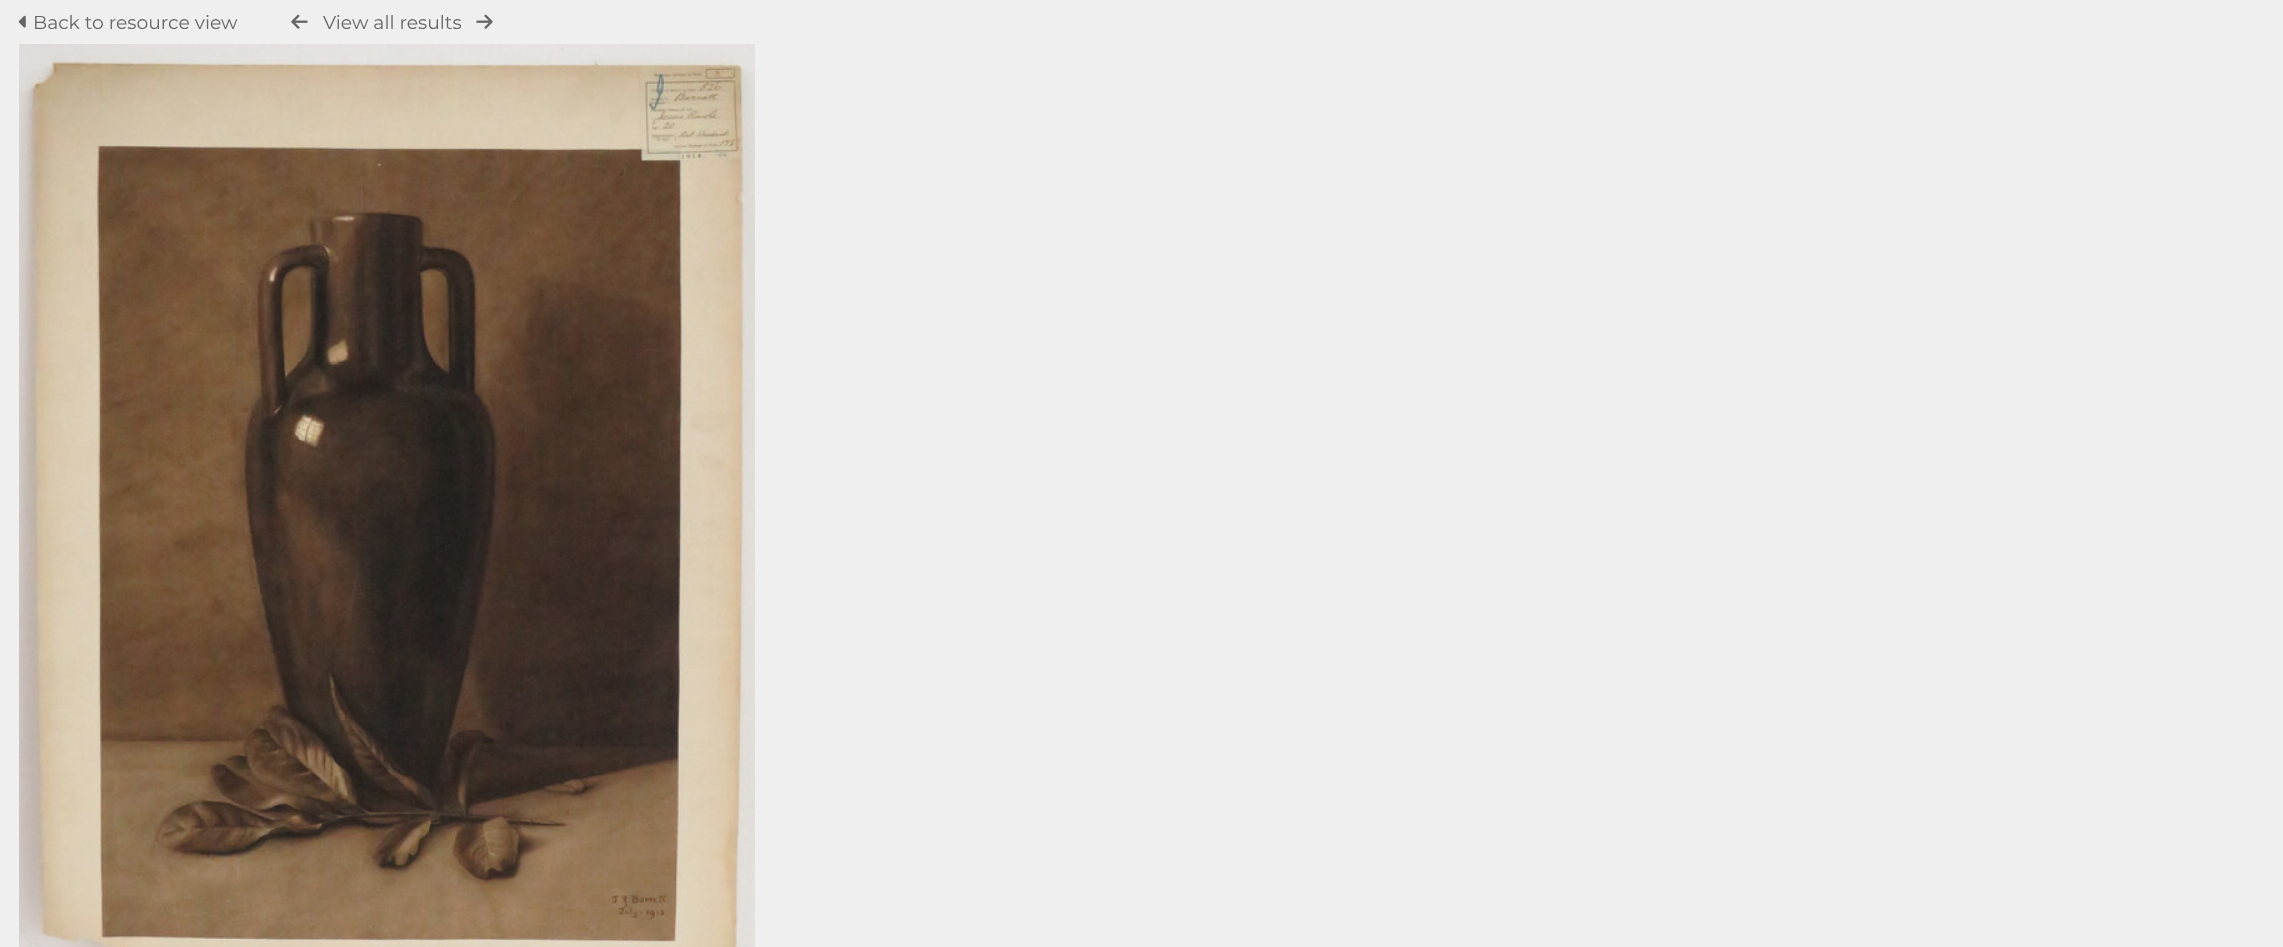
(async () => {
const canvas = document.querySelector("canvas")
canvas.width = 2283
canvas.height = 947
const c = canvas.getContext("2d")
c.miterLimit = 4
c.fontKerning = "normal"
function T(s,x,y){c.fillText(s,x,y)}
function R(x,y,w,h){c.fillRect(x,y,w,h)}
async function I(src,x,y,w,h){const img=new Image();img.src=src;await img.decode();c.drawImage(img,x,y,w,h)}
c.fillStyle="#efefef"
R(0,0,2283,947)
await I("1.png",18,15,8,13)
c.font="18.75px Montserrat"
c.fillStyle="#666"
T("Back to resource view",33,29)
await I("2.png",291,14,17,15)
T("View all results",323,29)
await I("3.png",476,14,17,15)
await I("4.png",19,44,736,903)
})()
